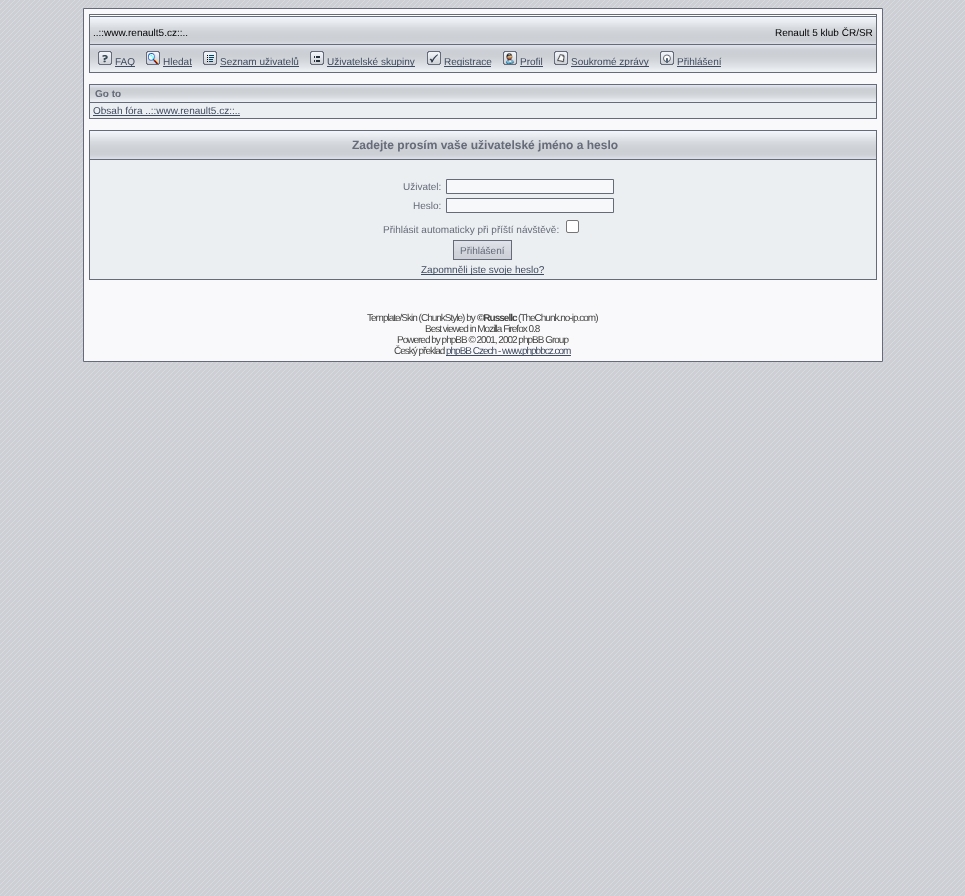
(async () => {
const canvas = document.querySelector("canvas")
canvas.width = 965
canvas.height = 896
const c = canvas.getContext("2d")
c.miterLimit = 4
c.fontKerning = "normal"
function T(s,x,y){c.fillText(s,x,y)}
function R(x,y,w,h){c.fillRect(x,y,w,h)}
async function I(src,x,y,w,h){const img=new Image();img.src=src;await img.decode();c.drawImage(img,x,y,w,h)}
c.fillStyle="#cdcfd4"
R(0,0,965,896)
await I("1.png",0,0,965,896)
c.fillStyle="#f9f9fb"
c.beginPath()
c.rect(83.5,8.5,799,353)
c.fill()
c.strokeStyle="#656b78"
c.stroke()
c.strokeRect(89.5,14.5,787,2)
c.fillStyle="#fff"
R(90,15,785,1)
await I("2.png",90,17,387,27)
c.fillStyle="#656b78"
R(89,44,388,1)
R(89,17,1,28)
c.font="10px Liberation Sans"
c.fillStyle="#000"
T("..::www.renault5.cz::..",93,36)
await I("3.png",477,17,399,27)
c.fillStyle="#656b78"
R(876,17,1,56)
R(477,44,400,1)
c.fillStyle="#000"
T("Renault 5 klub ČR/SR",775,36)
await I("4.png",90,45,786,27)
c.fillStyle="#656b78"
R(89,72,788,1)
R(89,45,1,28)
await I("5.png",98,51,14,14)
c.fillStyle="#3f4b5f"
R(115,66,20,1)
T("FAQ",115,65)
await I("6.png",146,51,14,14)
T("Hledat",163,65)
R(163,66,29,1)
await I("7.png",203,51,14,14)
T("Seznam uživatelů",220,65)
R(220,66,79,1)
await I("8.png",310,51,14,14)
R(327,66,88,1)
T("Uživatelské skupiny",327,65)
await I("9.png",427,51,14,14)
R(444,66,47,1)
T("Registrace",444,65)
await I("10.png",503,51,14,14)
T("Profil",520,65)
R(520,66,23,1)
await I("11.png",554,51,14,14)
R(571,66,78,1)
T("Soukromé zprávy",571,65)
await I("12.png",660,51,14,14)
T("Přihlášení",677,65)
R(677,66,44,1)
c.strokeRect(89.5,84.5,787,34)
await I("13.png",90,85,786,17)
c.fillStyle="#656b78"
R(90,102,786,1)
c.font="bold 10px Liberation Sans"
T("Go to",95,97)
c.fillStyle="#eceff2"
R(90,103,786,15)
c.font="10px Liberation Sans"
c.fillStyle="#3f4b5f"
T("Obsah fóra ..::www.renault5.cz::..",93,114)
R(93,115,147,1)
c.strokeRect(89.5,130.5,787,149)
await I("14.png",90,131,786,28)
c.font="bold 12px Liberation Sans"
c.fillStyle="#656b78"
T("Zadejte prosím vaše uživatelské jméno a heslo",352,149)
c.fillStyle="#eceff2"
R(90,160,786,119)
c.fillStyle="#656b78"
R(90,159,786,1)
c.font="10px Liberation Sans"
T("Uživatel:",403,190)
c.fillStyle="#f6f8f9"
c.beginPath()
c.rect(446.5,179.5,167,14)
c.fill()
c.stroke()
c.fillStyle="#656b78"
T("Heslo:",413,209)
c.fillStyle="#f6f8f9"
c.beginPath()
c.rect(446.5,198.5,167,14)
c.fill()
c.stroke()
c.fillStyle="#656b78"
T("Přihlásit automaticky při příští návštěvě:",383,233)
c.fillStyle="#fff"
c.beginPath()
c.roundRect(566.5,220.5,12,12,1.5)
c.fill()
c.strokeStyle="#767676"
c.stroke()
await I("15.png",454,241,57,18)
c.strokeStyle="#656b78"
c.strokeRect(453.5,240.5,58,19)
c.fillStyle="#656b78"
T("Přihlášení",460,254)
c.fillStyle="#3f4b5f"
R(421,274,123,1)
T("Zapomněli jste svoje heslo?",421,273)
c.letterSpacing="-1px"
c.fillStyle="#444"
T("Template/Skin (ChunkStyle) by",367,321)
c.font="bold 10px Liberation Sans"
T("©Russellc",477,321)
c.font="10px Liberation Sans"
T("(TheChunk.no-ip.com)",518,321)
T("Best viewed in Mozilla Firefox 0.8",425,332)
T("Powered by phpBB © 2001, 2002 phpBB Group",397,343)
T("Český překlad",394,354)
c.fillStyle="#3f4b5f"
R(446,355,125,1)
T("phpBB Czech - www.phpbbcz.com",446,354)
})()
